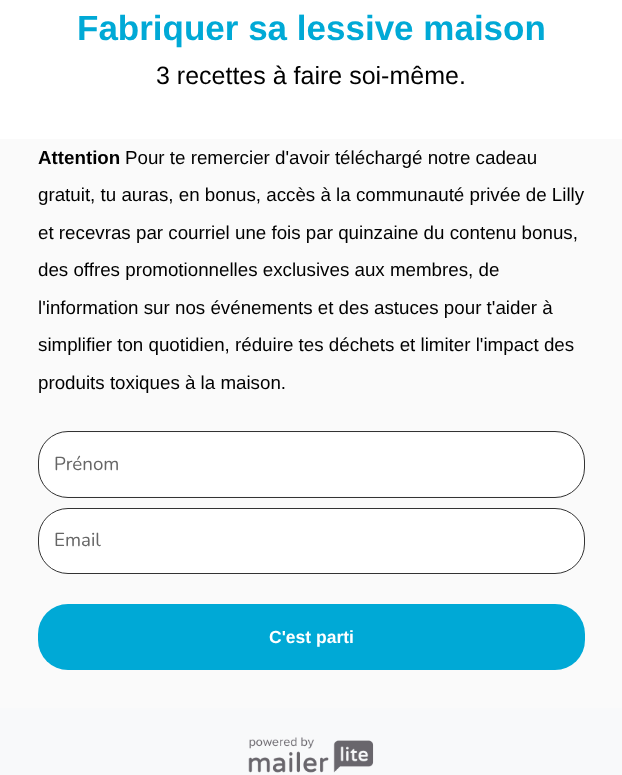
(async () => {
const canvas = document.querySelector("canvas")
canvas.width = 622
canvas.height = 775
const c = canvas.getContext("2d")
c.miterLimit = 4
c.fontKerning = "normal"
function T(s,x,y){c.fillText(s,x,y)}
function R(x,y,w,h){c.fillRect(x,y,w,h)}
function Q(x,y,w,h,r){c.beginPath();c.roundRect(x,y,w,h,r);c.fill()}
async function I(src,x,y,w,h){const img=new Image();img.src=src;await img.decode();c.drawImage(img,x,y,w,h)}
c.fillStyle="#fff"
R(0,0,622,775)
c.font="bold 35px Liberation Sans"
c.fillStyle="#00a9d6"
T("Fabriquer sa lessive maison",77,40)
c.font="25px Liberation Sans"
c.fillStyle="#000"
T("3 recettes à faire soi-même.",156,84)
c.fillStyle="#fafafa"
R(0,139,622,569)
c.font="bold 18.75px Liberation Sans"
c.fillStyle="#000"
T("Attention",38,164)
c.font="18.75px Liberation Sans"
T("Pour te remercier d'avoir téléchargé notre cadeau",125,164)
T("gratuit, tu auras, en bonus, accès à la communauté privée de Lilly",38,201)
T("et recevras par courriel une fois par quinzaine du contenu bonus,",38,239)
T("des offres promotionnelles exclusives aux membres, de",38,276)
T("l'information sur nos événements et des astuces pour t'aider à",38,314)
T("simplifier ton quotidien, réduire tes déchets et limiter l'impact des",38,351)
T("produits toxiques à la maison.",38,389)
c.fillStyle="#fff"
Q(39,433,545,63,29)
c.beginPath()
c.roundRect(38.5,431.5,546,66,29.5)
c.strokeStyle="#333"
c.stroke()
c.font="18.75px Nunito"
c.fillStyle="#666"
T("Prénom",54,470)
c.fillStyle="#fff"
c.beginPath()
c.roundRect(38.5,508.5,546,65,29.5)
c.fill()
c.stroke()
c.fillStyle="#666"
T("Email",54,546)
c.fillStyle="#00a9d6"
Q(38,604,547,66,30)
c.font="bold 17.5px Liberation Sans"
c.fillStyle="#fff"
T("C'est parti",269,643)
c.fillStyle="#f8f9fa"
R(0,708,622,67)
await I("1.png",248,737,126,36)
})()
